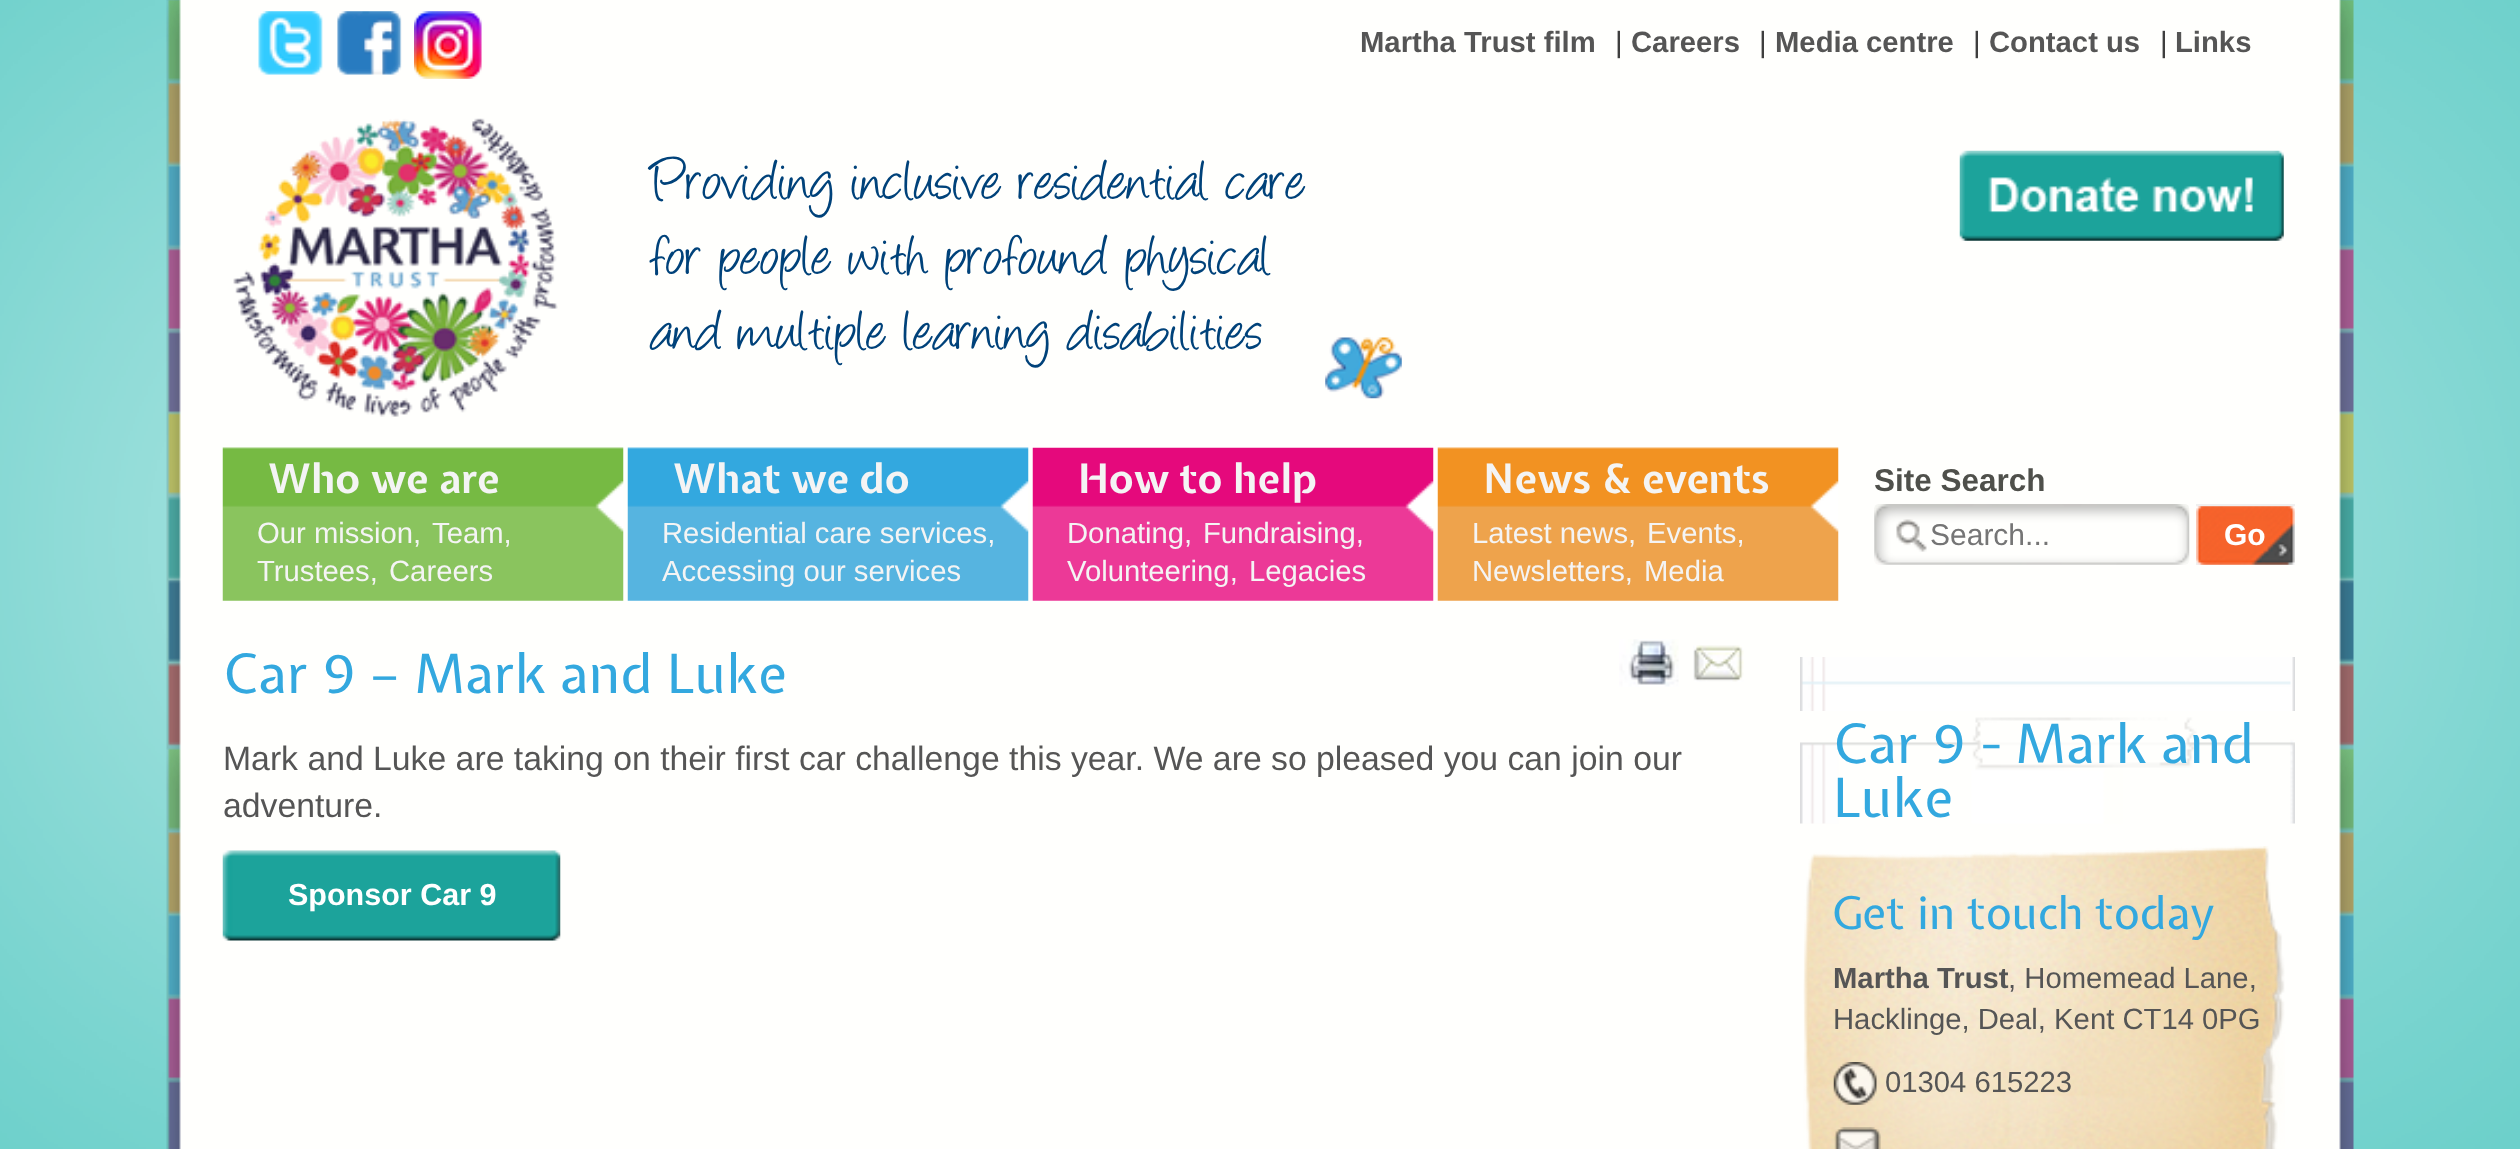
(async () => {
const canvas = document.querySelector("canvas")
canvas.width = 2520
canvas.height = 1149
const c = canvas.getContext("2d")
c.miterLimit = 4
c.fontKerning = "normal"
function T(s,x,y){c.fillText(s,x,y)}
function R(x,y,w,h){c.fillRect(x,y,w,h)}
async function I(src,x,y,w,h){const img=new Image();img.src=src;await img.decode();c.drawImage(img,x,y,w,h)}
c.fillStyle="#62cdc7"
R(0,0,2520,1149)
await I("1.png",0,0,2520,1149)
await I("2.png",166,0,2188,1149)
await I("3.png",258,11,65,64)
await I("4.png",337,11,65,64)
await I("5.png",414,11,68,68)
c.font="bold 29.25px Liberation Sans"
c.fillStyle="#555"
T("Martha Trust film",1360,52)
c.font="29.25px Liberation Sans"
c.fillStyle="#3e3e3e"
T("|",1615,52)
c.font="bold 29.25px Liberation Sans"
c.fillStyle="#555"
T("Careers",1631,52)
c.font="29.25px Liberation Sans"
c.fillStyle="#3e3e3e"
T("|",1759,52)
c.font="bold 29.25px Liberation Sans"
c.fillStyle="#555"
T("Media centre",1775,52)
c.font="29.25px Liberation Sans"
c.fillStyle="#3e3e3e"
T("|",1973,52)
c.font="bold 29.25px Liberation Sans"
c.fillStyle="#555"
T("Contact us",1989,52)
c.font="29.25px Liberation Sans"
c.fillStyle="#3e3e3e"
T("|",2160,52)
c.font="bold 29.25px Liberation Sans"
c.fillStyle="#555"
T("Links",2175,52)
await I("6.png",233,118,325,299)
await I("7.png",1325,337,77,62)
c.font="65.25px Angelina"
c.fillStyle="#00427a"
T("Providing inclusive residential care",651,196)
T("for people with profound physical",651,271)
T("and multiple learning disabilities",651,346)
await I("8.png",1959,150,325,91)
await I("9.png",222,447,402,154)
c.font="bold 40.5px Expletus Sans"
c.fillStyle="#f4f4f4"
T("Who we are",268,493)
c.font="29.25px Liberation Sans"
T("Our mission,",257,543)
T("Team,",432,543)
T("Trustees,",257,581)
T("Careers",389,581)
await I("10.png",627,447,402,154)
c.font="bold 40.5px Expletus Sans"
T("What we do",673,493)
c.font="29.25px Liberation Sans"
T("Residential care services,",662,543)
T("Accessing our services",662,581)
await I("11.png",1032,447,402,154)
c.font="bold 40.5px Expletus Sans"
T("How to help",1078,493)
c.font="29.25px Liberation Sans"
T("Donating,",1067,543)
T("Fundraising,",1203,543)
T("Volunteering,",1067,581)
T("Legacies",1249,581)
await I("12.png",1437,447,402,154)
c.font="bold 40.5px Expletus Sans"
T("News & events",1483,493)
c.font="29.25px Liberation Sans"
T("Latest news,",1472,543)
T("Events,",1647,543)
T("Newsletters,",1472,581)
T("Media",1644,581)
c.font="bold 31.5px Liberation Sans"
c.fillStyle="#4f504b"
T("Site Search",1874,491)
await I("13.png",1874,504,316,61)
c.font="30px Liberation Sans"
c.fillStyle="#757575"
T("Search...",1930,545)
c.fillStyle="#efefef"
R(2196,504,99,61)
await I("14.png",2196,506,99,59)
c.font="bold 30px Liberation Sans"
c.fillStyle="#fff"
T("Go",2224,545)
c.font="54px Expletus Sans"
c.fillStyle="#33a8df"
T("Car 9 – Mark and Luke",223,693)
await I("15.png",1619,639,60,48)
await I("16.png",1693,645,51,37)
c.font="33.75px Liberation Sans"
c.fillStyle="#555"
T("Mark and Luke are taking on their first car challenge this year. We are so pleased you can join our",223,770)
T("adventure.",223,817)
await I("17.png",222,850,339,91)
c.font="bold 30.5px Liberation Sans"
c.fillStyle="#fff"
T("Sponsor Car 9",288,905)
await I("18.png",1800,657,495,54)
await I("19.png",1800,711,495,113)
c.font="54px Expletus Sans"
c.fillStyle="#33a8df"
T("Car 9 - Mark and",1833,763)
T("Luke",1833,817)
await I("20.png",1803,846,482,303)
c.font="45px Expletus Sans"
T("Get in touch today",1833,929)
c.font="bold 29.25px Liberation Sans"
c.fillStyle="#555"
T("Martha Trust",1833,988)
c.font="29.25px Liberation Sans"
T(", Homemead Lane,",2008,988)
T("Hacklinge, Deal, Kent CT14 0PG",1833,1029)
await I("21.png",1833,1062,44,43)
T("01304 615223",1885,1092)
await I("22.png",1834,1127,47,22)
})()
